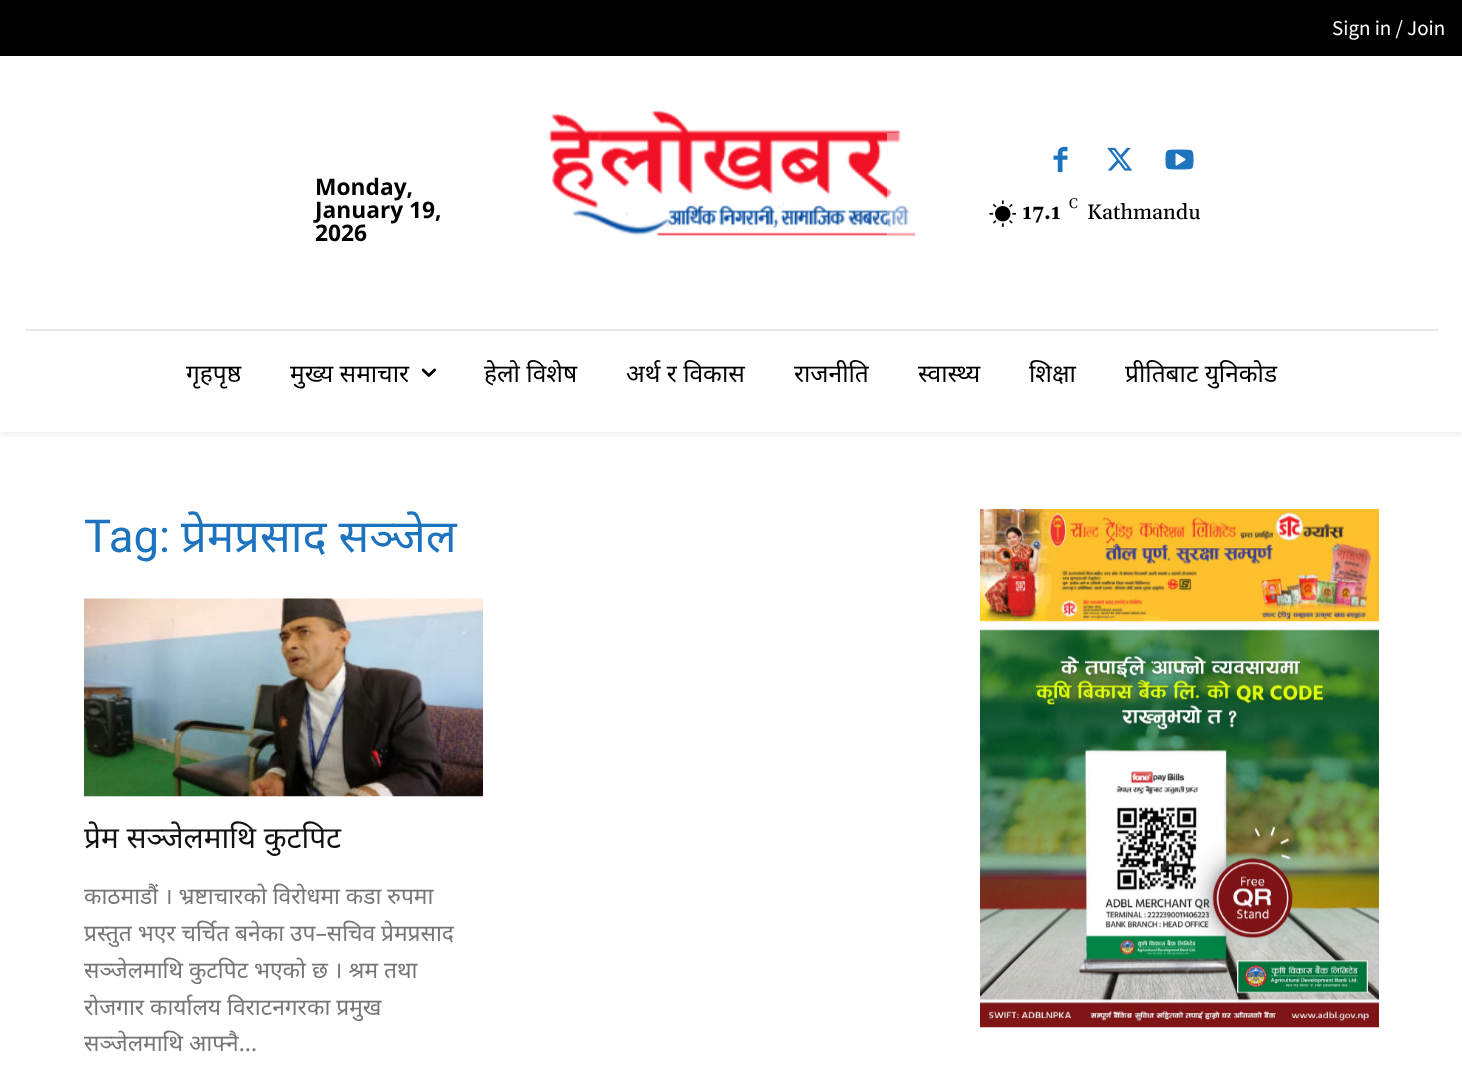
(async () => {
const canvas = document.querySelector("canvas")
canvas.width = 1462
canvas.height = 1080
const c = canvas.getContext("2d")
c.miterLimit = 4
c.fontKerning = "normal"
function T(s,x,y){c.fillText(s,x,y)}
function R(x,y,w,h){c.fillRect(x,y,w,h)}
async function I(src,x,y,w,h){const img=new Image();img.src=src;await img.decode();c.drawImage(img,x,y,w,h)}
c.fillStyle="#fff"
R(0,0,1462,1080)
c.fillStyle="#000"
R(0,0,1462,56)
c.font="21px Source Sans Pro"
c.fillStyle="#fff"
T("Sign in / Join",1332,35)
c.font="bold 22.75px Open Sans"
c.fillStyle="#000"
T("Monday,",315,195)
T("January 19,",315,218)
T("2026",315,241)
await I("1.png",549,110,367,126)
c.fillStyle="#ffffff75"
R(887,133,29,102)
await I("2.png",1053,146,15,27)
await I("3.png",1107,147,26,24)
await I("4.png",1165,149,29,21)
await I("5.png",989,200,27,27)
c.font="14px Gelasio"
c.fillStyle="#000"
T("C",1069,208)
c.font="bold 21px Gelasio"
T("17.1",1022,219)
c.font="500 21px Gelasio"
T("Kathmandu",1087,219)
c.fillStyle="#eaeaea"
R(25,329,1414,2)
c.save()
c.beginPath()
c.rect(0,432,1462,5)
c.clip()
c.fillStyle="#0000000f"
c.filter="blur(3.5px)"
c.beginPath()
c.rect(0,263,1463,173)
c.fill()
c.filter="none"
c.restore()
c.font="24.5px Noto Sans"
c.fillStyle="#000"
T("गृहपृष्ठ",186,382)
T("मुख्य समाचार",290,382)
await I("6.png",421,368,15,9)
T("हेलाे विशेष",484,382)
T("अर्थ र विकास",626,382)
T("राजनीति",794,382)
T("स्वास्थ्य",918,382)
T("शिक्षा",1029,382)
T("प्रीतिबाट युनिकोड",1125,382)
c.font="45.5px Roboto"
c.fillStyle="#1e73be"
T("Tag:",84,552)
c.font="45.5px Noto Sans"
T("प्रेमप्रसाद सञ्जेल",181,552)
await I("7.png",84,598,399,199)
c.font="29.75px Noto Sans"
c.fillStyle="#111"
T("प्रेम सञ्जेलमाथि कुटपिट",84,848)
c.font="22.75px Noto Sans"
c.fillStyle="#767676"
T("काठमाडौं । भ्रष्टाचारको विरोधमा कडा रुपमा",84,904)
T("प्रस्तुत भएर चर्चित बनेका उप–सचिव प्रेमप्रसाद",84,941)
T("सञ्जेलमाथि कुटपिट भएको छ । श्रम तथा",84,978)
T("रोजगार कार्यालय विराटनगरका प्रमुख",84,1015)
T("सञ्जेलमाथि आफ्नै...",84,1051)
await I("8.png",980,509,399,113)
await I("9.png",980,629,399,399)
})()
